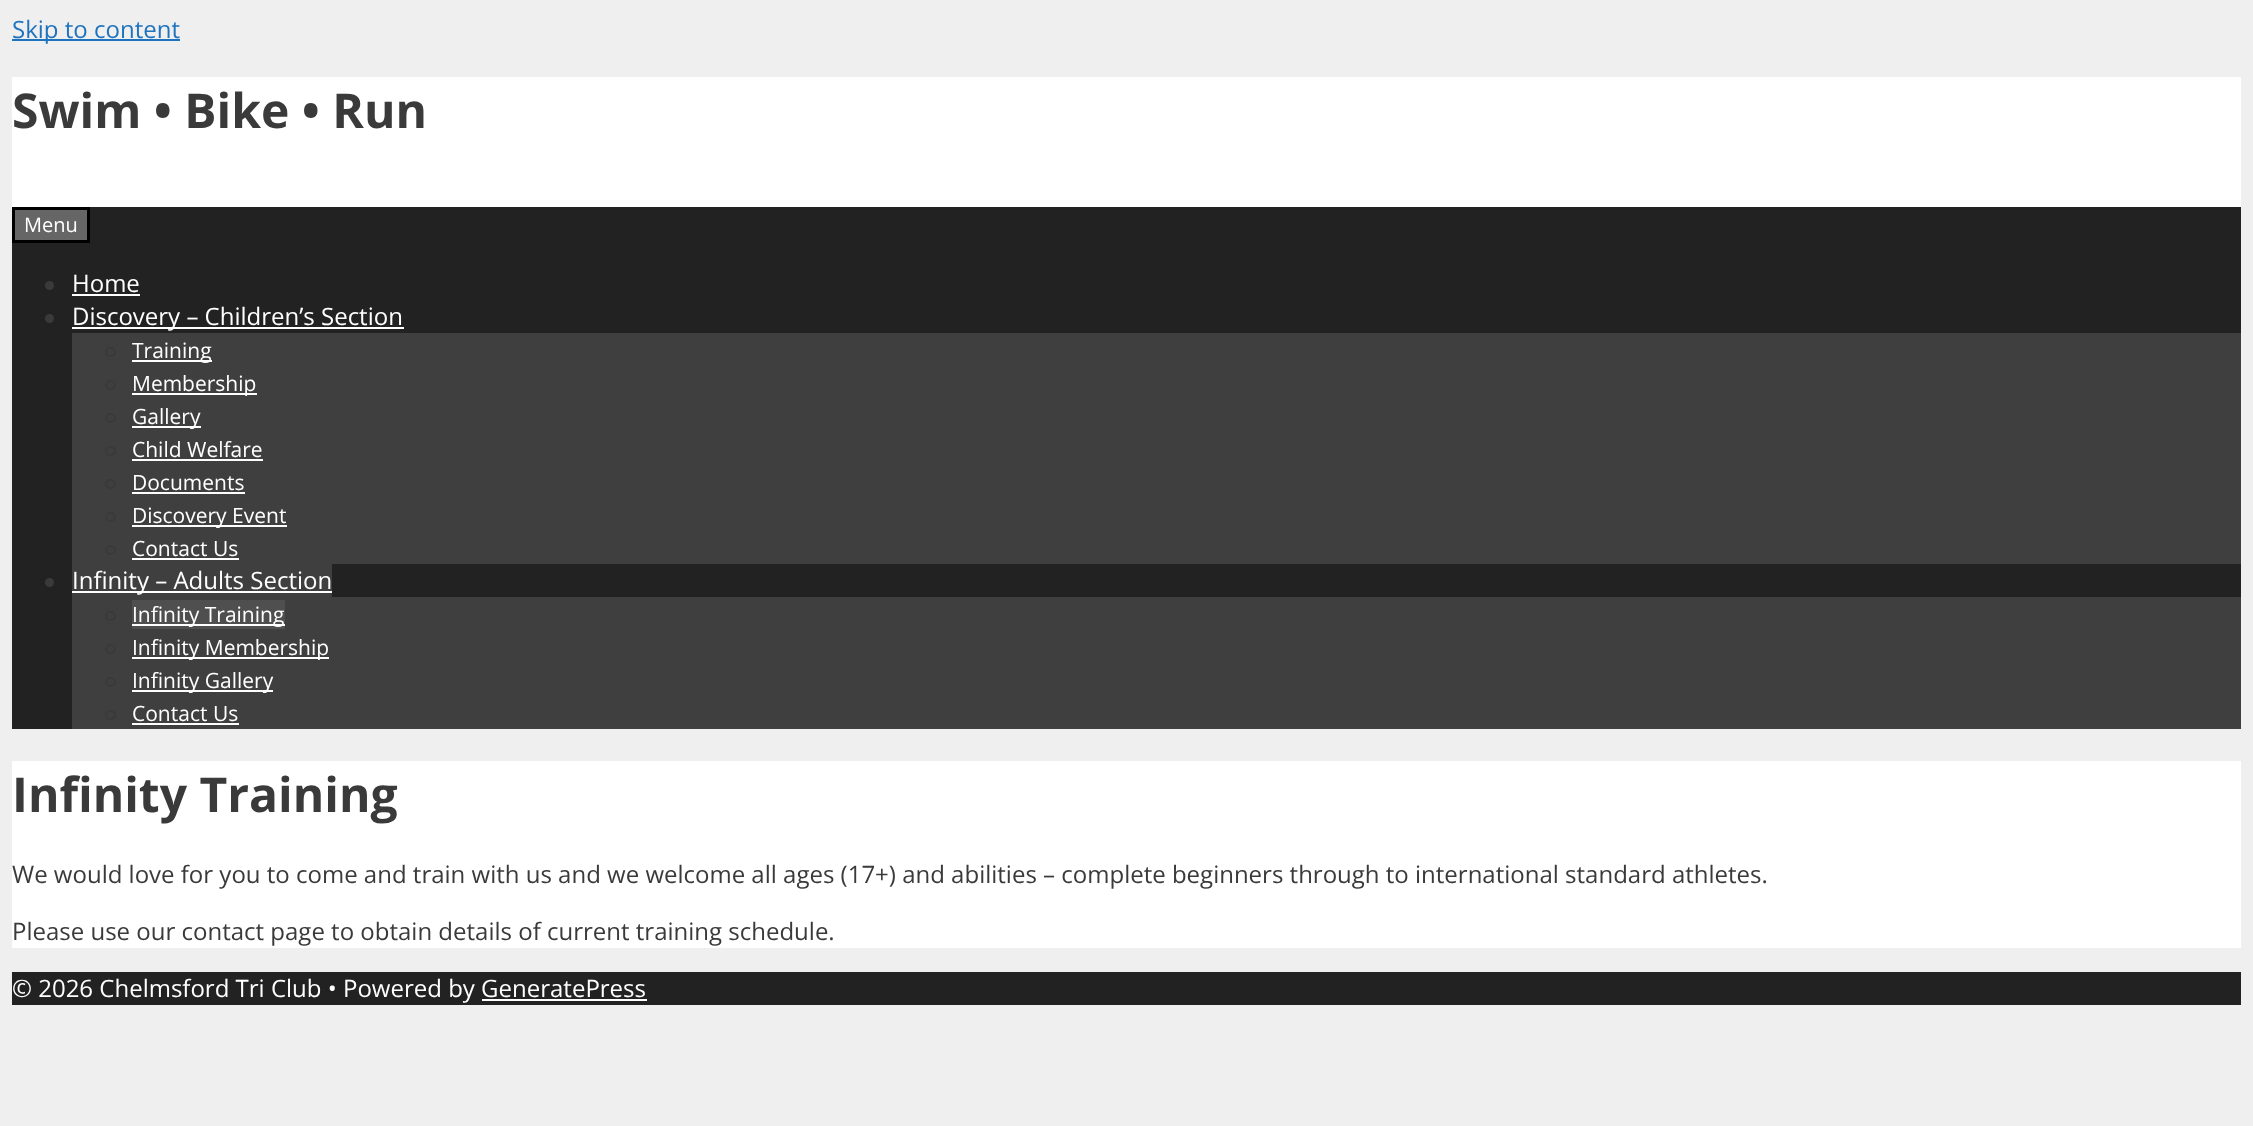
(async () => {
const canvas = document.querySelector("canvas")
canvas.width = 2253
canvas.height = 1126
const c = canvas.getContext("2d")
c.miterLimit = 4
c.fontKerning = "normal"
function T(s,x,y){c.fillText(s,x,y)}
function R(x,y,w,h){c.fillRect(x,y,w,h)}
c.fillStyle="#efefef"
R(0,0,2253,1126)
c.fillStyle="#1e73be"
R(12,39,168,2)
c.font="24px Open Sans"
T("Skip to content",12,38)
c.fillStyle="#fff"
R(12,77,2229,130)
c.font="bold 48px Open Sans"
c.fillStyle="#3a3a3a"
T("Swim • Bike • Run",12,128)
c.fillStyle="#222"
R(12,207,2229,522)
c.fillStyle="#666"
c.beginPath()
c.rect(13.5,208.5,75,33)
c.fill()
c.strokeStyle="#000"
c.lineWidth=3
c.stroke()
c.font="20px Open Sans"
c.fillStyle="#fff"
T("Menu",24,232)
c.fillStyle="#3a3a3a"
c.beginPath()
c.arc(49.5,285.5,4.5,0,7)
c.fill()
c.font="24px Open Sans"
c.fillStyle="#fff"
T("Home",72,292)
R(72,294,68,2)
c.fillStyle="#3a3a3a"
c.beginPath()
c.arc(49.5,318.5,4.5,0,7)
c.fill()
c.fillStyle="#fff"
R(72,327,332,2)
T("Discovery – Children’s Section",72,325)
c.fillStyle="#3f3f3f"
R(72,333,2169,231)
c.beginPath()
c.roundRect(106,348,9,8,4)
c.strokeStyle="#3a3a3a"
c.lineWidth=2
c.stroke()
c.fillStyle="#fff"
R(132,360,80,2)
c.font="21px Open Sans"
T("Training",132,358)
c.beginPath()
c.roundRect(106,381,9,8,4)
c.stroke()
R(132,393,125,2)
T("Membership",132,391)
c.beginPath()
c.roundRect(106,414,9,8,4)
c.stroke()
R(132,426,69,2)
T("Gallery",132,424)
c.beginPath()
c.roundRect(106,447,9,8,4)
c.stroke()
T("Child Welfare",132,457)
R(132,459,131,2)
c.beginPath()
c.roundRect(106,480,9,8,4)
c.stroke()
T("Documents",132,490)
R(132,492,113,2)
c.beginPath()
c.roundRect(106,513,9,8,4)
c.stroke()
R(132,525,155,2)
T("Discovery Event",132,523)
c.beginPath()
c.roundRect(106,546,9,8,4)
c.stroke()
T("Contact Us",132,556)
R(132,558,107,2)
c.fillStyle="#3a3a3a"
c.beginPath()
c.arc(49.5,582.5,4.5,0,7)
c.fill()
c.fillStyle="#3f3f3f"
R(72,564,260,33)
c.fillStyle="#fff"
R(72,591,260,2)
c.font="24px Open Sans"
T("Infinity – Adults Section",72,589)
c.fillStyle="#3f3f3f"
R(72,597,2169,132)
c.beginPath()
c.roundRect(106,612,9,8,4)
c.stroke()
c.fillStyle="#4f4f4f"
R(132,600,153,29)
c.fillStyle="#fff"
R(132,624,153,2)
c.font="21px Open Sans"
T("Infinity Training",132,622)
c.beginPath()
c.roundRect(106,645,9,8,4)
c.stroke()
R(132,657,197,2)
T("Infinity Membership",132,655)
c.beginPath()
c.roundRect(106,678,9,8,4)
c.stroke()
R(132,690,141,2)
T("Infinity Gallery",132,688)
c.beginPath()
c.roundRect(106,711,9,8,4)
c.stroke()
T("Contact Us",132,721)
R(132,723,107,2)
R(12,761,2229,187)
c.font="bold 48px Open Sans"
c.fillStyle="#3a3a3a"
T("Infinity Training",12,812)
c.font="24px Open Sans"
T("We would love for you to come and train with us and we welcome all ages (17+) and abilities – complete beginners through to international standard athletes.",12,883)
T("Please use our contact page to obtain details of current training schedule.",12,940)
c.fillStyle="#222"
R(12,972,2229,33)
c.fillStyle="#fff"
T("© 2026 Chelmsford Tri Club • Powered by GeneratePress",12,997)
R(482,999,165,2)
})()
